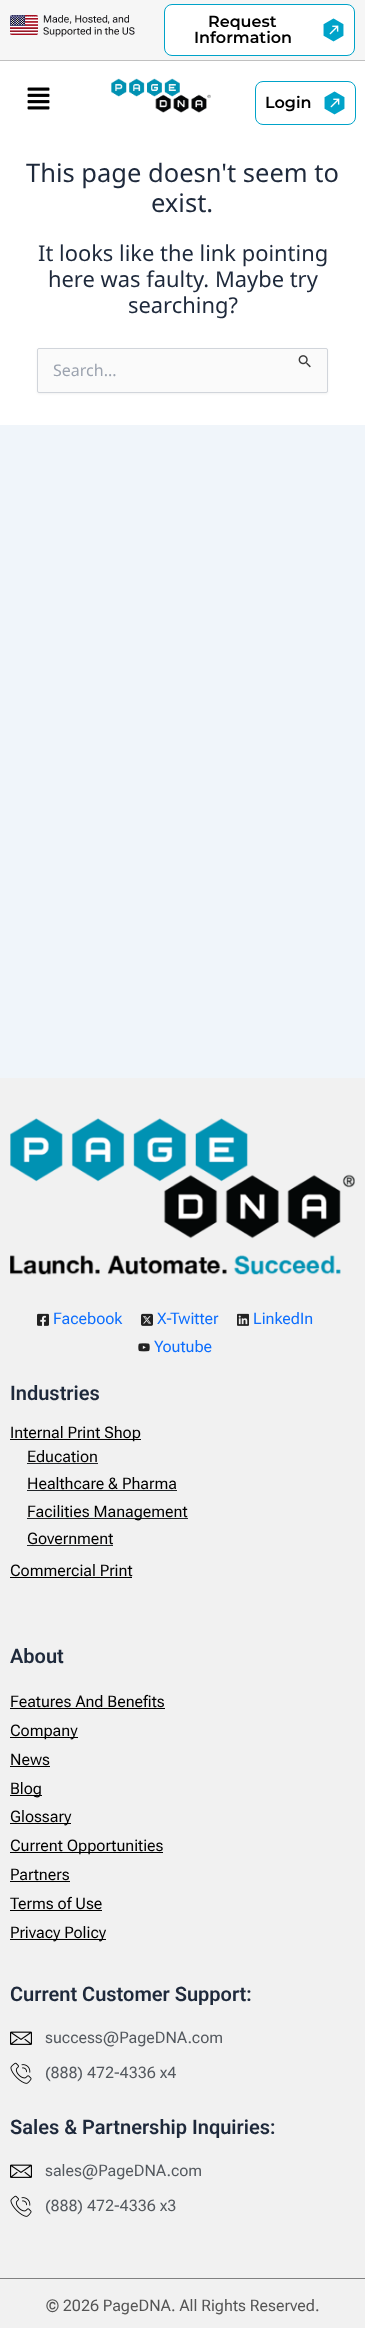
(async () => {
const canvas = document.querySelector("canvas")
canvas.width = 365
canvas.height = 2328
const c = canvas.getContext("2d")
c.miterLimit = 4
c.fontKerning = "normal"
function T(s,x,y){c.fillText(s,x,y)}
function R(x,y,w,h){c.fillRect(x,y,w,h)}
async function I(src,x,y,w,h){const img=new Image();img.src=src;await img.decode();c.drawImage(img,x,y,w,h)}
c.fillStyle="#f0f5fa"
R(0,0,365,2328)
c.fillStyle="#f6f6f6"
R(0,0,365,60)
c.fillStyle="#c0c0c0"
R(0,60,365,1)
await I("1.png",10,15,125,22)
c.fillStyle="#fff"
c.beginPath()
c.roundRect(164.5,4.5,190,51,7.5)
c.fill()
c.strokeStyle="#00a3c9"
c.stroke()
c.font="600 16px Montserrat"
c.fillStyle="#000"
T("Request",208,27)
T("Information",194,43)
await I("2.png",323,18,21,24)
c.fillStyle="#fff"
R(0,61,365,364)
await I("3.png",27,87,23,23)
await I("4.png",111,78,100,35)
c.beginPath()
c.roundRect(255.5,81.5,100,43,7.5)
c.stroke()
c.fillStyle="#000"
T("Login",265,108)
await I("2.png",324,91,21,24)
c.font="25.5px Noto Sans"
c.fillStyle="#1e293b"
T("This page doesn't seem to",26,182)
T("exist.",151,212)
c.font="21.9px Noto Sans"
T("It looks like the link pointing",38,261)
T("here was faulty. Maybe try",48,287)
T("searching?",128,313)
c.fillStyle="#0000000d"
c.filter="blur(1px)"
c.beginPath()
c.roundRect(37,349,291,45,2)
c.fill()
c.filter="none"
c.fillStyle="#fafafa"
c.beginPath()
c.roundRect(37.5,348.5,290,44,1.5)
c.fill()
c.strokeStyle="#d1d5db"
c.stroke()
await I("5.png",298,355,13,13)
c.font="16px Noto Sans"
c.fillStyle="#9ca3af"
T("Search...",53,376)
c.fillStyle="#f1f1f1"
R(0,1078,365,1250)
await I("6.png",10,1118,345,157)
await I("7.png",37,1313,12,13)
c.font="16px Roboto Flex"
c.fillStyle="#0d6efd"
T("Facebook",53,1324)
await I("8.png",141,1313,12,13)
T("X-Twitter",157,1324)
await I("9.png",237,1313,12,13)
T("LinkedIn",253,1324)
await I("10.png",138,1343,12,9)
T("Youtube",154,1352)
c.font="600 20px Roboto"
c.fillStyle="#1e293b"
T("Industries",10,1400)
c.fillStyle="#000"
R(10,1439,131,1)
c.font="16px Roboto Flex"
T("Internal Print Shop",10,1438)
T("Education",27,1462)
c.fillStyle="#212529"
R(27,1463,71,1)
c.fillStyle="#000"
T("Healthcare & Pharma",27,1489)
c.fillStyle="#212529"
R(27,1490,150,1)
R(27,1518,161,1)
c.fillStyle="#000"
T("Facilities Management",27,1517)
T("Government",27,1544)
c.fillStyle="#212529"
R(27,1545,86,1)
c.fillStyle="#000"
T("Commercial Print",10,1576)
R(10,1577,122,1)
c.font="600 20px Roboto"
c.fillStyle="#1e293b"
T("About",10,1663)
c.font="16px Roboto Flex"
c.fillStyle="#000"
T("Features And Benefits",10,1707)
R(10,1708,155,1)
R(10,1737,68,1)
T("Company",10,1736)
T("News",10,1765)
R(10,1766,40,1)
R(10,1795,32,1)
T("Blog",10,1794)
R(10,1823,61,1)
T("Glossary",10,1822)
R(10,1852,153,1)
T("Current Opportunities",10,1851)
T("Partners",10,1880)
R(10,1881,60,1)
T("Terms of Use",10,1909)
R(10,1910,92,1)
R(10,1939,96,1)
T("Privacy Policy",10,1938)
c.font="600 20px Roboto"
c.fillStyle="#1e293b"
T("Current Customer Support:",10,2001)
await I("11.png",10,2031,22,14)
c.font="16px Roboto Flex"
c.fillStyle="#54595f"
T("success@PageDNA.com",45,2043)
await I("12.png",10,2062,22,22)
T("(888) 472-4336 x4",45,2078)
c.font="600 20px Roboto"
c.fillStyle="#1e293b"
T("Sales & Partnership Inquiries:",10,2134)
await I("11.png",10,2164,22,14)
c.font="16px Roboto Flex"
c.fillStyle="#54595f"
T("sales@PageDNA.com",45,2176)
await I("12.png",10,2195,22,22)
T("(888) 472-4336 x3",45,2211)
c.fillStyle="#818181"
R(0,2278,365,1)
c.fillStyle="#555"
T("© 2026 PageDNA. All Rights Reserved.",46,2311)
})()
